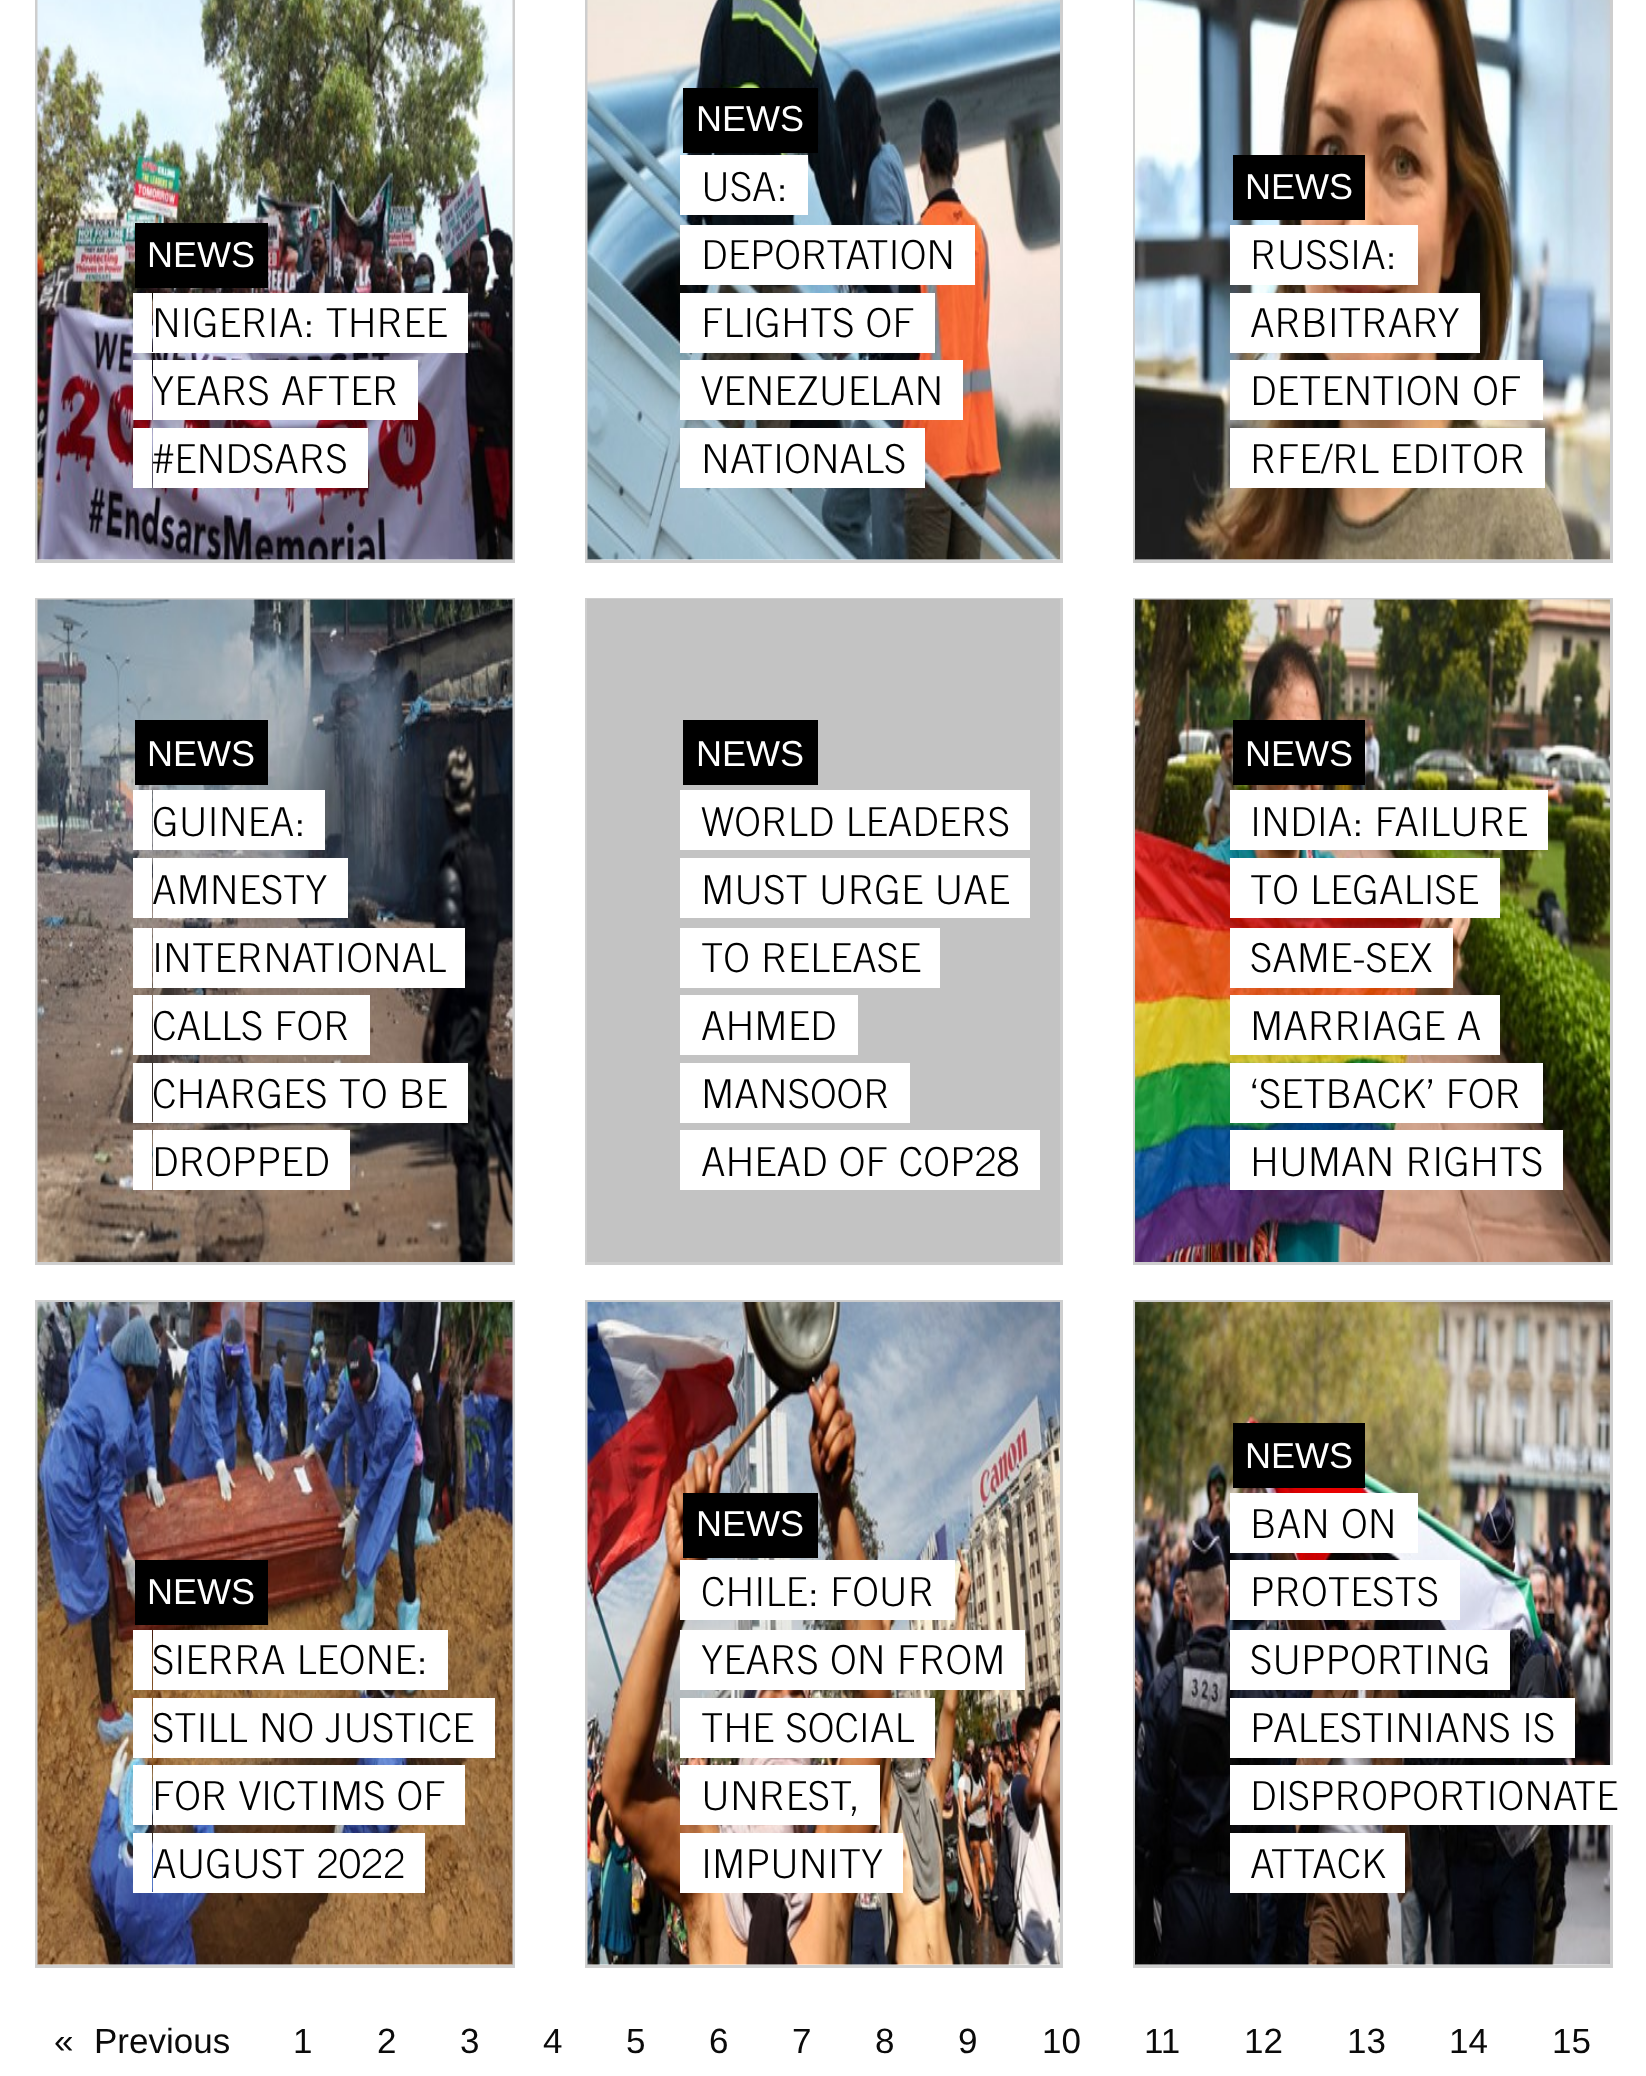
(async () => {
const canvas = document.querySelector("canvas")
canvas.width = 1646
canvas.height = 2076
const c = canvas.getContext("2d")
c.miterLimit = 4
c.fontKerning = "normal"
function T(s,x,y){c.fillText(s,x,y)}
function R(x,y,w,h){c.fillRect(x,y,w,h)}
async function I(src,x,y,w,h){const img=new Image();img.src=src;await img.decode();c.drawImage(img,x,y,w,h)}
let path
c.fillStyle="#fff"
R(0,0,1646,2076)
c.strokeStyle="#cecece"
c.lineWidth=3
c.strokeRect(36.5,-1.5,477,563)
await I("1.png",37,0,476,560)
c.fillStyle="#000"
R(135,223,133,65)
c.font="36px Liberation Sans"
c.fillStyle="#fff"
T("NEWS",147,267)
path = new Path2D("M133 293v60h295v-1h-276v-59z")
c.fill(path)
path = new Path2D("M173 352v1h295v-60h-20v59z")
c.fill(path)
R(153,293,295,59)
c.font="300 40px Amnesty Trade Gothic"
c.fillStyle="#000"
T("NIGERIA: THREE",152,337)
c.fillStyle="#fff"
R(153,360,265,60)
c.fillStyle="#000"
T("YEARS AFTER",152,405)
c.fillStyle="#fff"
R(133,360,19,60)
R(153,428,195,60)
c.fillStyle="#000"
T("#ENDSARS",152,473)
c.fillStyle="#fff"
path = new Path2D("M133 428v60h195h-176v-60z")
c.fill(path)
path = new Path2D("M173 488h195v-60h-20v60z")
c.fill(path)
c.strokeRect(586.5,-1.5,475,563)
await I("2.png",587,0,473,560)
c.fillStyle="#000"
R(683,88,135,65)
c.font="36px Liberation Sans"
c.fillStyle="#fff"
T("NEWS",696,131)
R(700,155,108,60)
c.font="300 40px Amnesty Trade Gothic"
c.fillStyle="#000"
T("USA:",701,201)
c.fillStyle="#fff"
R(680,155,20,60)
R(700,225,275,60)
c.fillStyle="#000"
T("DEPORTATION",701,269)
c.fillStyle="#fff"
R(680,225,20,60)
path = new Path2D("M680 293v60h215v-1h-195v-59z")
c.fill(path)
path = new Path2D("M720 352v1h215v-60h-20v59z")
c.fill(path)
R(700,293,215,59)
c.fillStyle="#000"
T("FLIGHTS OF",701,337)
c.fillStyle="#fff"
R(700,360,263,60)
c.fillStyle="#000"
T("VENEZUELAN",701,405)
c.fillStyle="#fff"
R(680,360,20,60)
R(700,428,205,60)
c.fillStyle="#000"
T("NATIONALS",701,473)
c.fillStyle="#fff"
path = new Path2D("M680 428v60h205h-185v-60z")
c.fill(path)
path = new Path2D("M720 488h205v-60h-20v60z")
c.fill(path)
c.strokeRect(1134.5,-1.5,477,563)
await I("3.png",1135,0,475,560)
c.fillStyle="#000"
R(1233,155,132,65)
c.font="36px Liberation Sans"
c.fillStyle="#fff"
T("NEWS",1245,199)
R(1250,225,168,60)
c.font="300 40px Amnesty Trade Gothic"
c.fillStyle="#000"
T("RUSSIA:",1250,269)
c.fillStyle="#fff"
R(1230,225,20,60)
path = new Path2D("M1230 293v60h210v-1h-190v-59z")
c.fill(path)
path = new Path2D("M1270 352v1h210v-60h-20v59z")
c.fill(path)
R(1250,293,210,59)
c.fillStyle="#000"
T("ARBITRARY",1250,337)
c.fillStyle="#fff"
R(1250,360,293,60)
c.fillStyle="#000"
T("DETENTION OF",1250,405)
c.fillStyle="#fff"
R(1230,360,20,60)
R(1250,428,275,60)
c.fillStyle="#000"
T("RFE/RL EDITOR",1250,473)
c.fillStyle="#fff"
path = new Path2D("M1230 428v60h275h-255v-60z")
c.fill(path)
path = new Path2D("M1270 488h275v-60h-20v60z")
c.fill(path)
c.strokeRect(36.5,599.5,477,664)
await I("4.png",37,599,476,663)
c.fillStyle="#000"
R(135,720,133,65)
c.font="36px Liberation Sans"
c.fillStyle="#fff"
T("NEWS",147,766)
R(153,790,172,60)
c.font="300 40px Amnesty Trade Gothic"
c.fillStyle="#000"
T("GUINEA:",152,836)
c.fillStyle="#fff"
R(133,790,19,60)
R(153,858,175,60)
c.fillStyle="#000"
T("AMNESTY",152,904)
c.fillStyle="#fff"
path = new Path2D("M133 858v60h175h-156v-60z")
c.fill(path)
path = new Path2D("M173 918h175v-60h-20v60z")
c.fill(path)
path = new Path2D("M173 988h292v-60h-20v60z")
c.fill(path)
R(153,928,292,60)
c.fillStyle="#000"
T("INTERNATIONAL",152,972)
c.fillStyle="#fff"
path = new Path2D("M133 928v60h292h-273v-60z")
c.fill(path)
R(153,995,217,60)
c.fillStyle="#000"
T("CALLS FOR",152,1040)
c.fillStyle="#fff"
R(133,995,19,60)
path = new Path2D("M133 1063v60h295v-1h-276v-59z")
c.fill(path)
path = new Path2D("M173 1122v1h295v-60h-20v59z")
c.fill(path)
R(153,1063,295,59)
c.fillStyle="#000"
T("CHARGES TO BE",152,1108)
c.fillStyle="#fff"
R(153,1130,197,60)
c.fillStyle="#000"
T("DROPPED",152,1176)
c.fillStyle="#fff"
R(133,1130,19,60)
c.strokeRect(586.5,599.5,475,664)
c.fillStyle="#c3c3c3"
R(587,599,473,663)
c.fillStyle="#000"
R(683,720,135,65)
c.font="36px Liberation Sans"
c.fillStyle="#fff"
T("NEWS",696,766)
R(700,790,330,60)
c.font="300 40px Amnesty Trade Gothic"
c.fillStyle="#000"
T("WORLD LEADERS",701,836)
c.fillStyle="#fff"
R(680,790,20,60)
R(700,858,310,60)
c.fillStyle="#000"
T("MUST URGE UAE",701,904)
c.fillStyle="#fff"
path = new Path2D("M680 858v60h310h-290v-60z")
c.fill(path)
path = new Path2D("M720 918h310v-60h-20v60z")
c.fill(path)
path = new Path2D("M720 988h220v-60h-20v60z")
c.fill(path)
R(700,928,220,60)
c.fillStyle="#000"
T("TO RELEASE",701,972)
c.fillStyle="#fff"
path = new Path2D("M680 928v60h220h-200v-60z")
c.fill(path)
R(700,995,158,60)
c.fillStyle="#000"
T("AHMED",701,1040)
c.fillStyle="#fff"
R(680,995,20,60)
path = new Path2D("M680 1063v60h190v-1h-170v-59z")
c.fill(path)
path = new Path2D("M720 1122v1h190v-60h-20v59z")
c.fill(path)
R(700,1063,190,59)
c.fillStyle="#000"
T("MANSOOR",701,1108)
c.fillStyle="#fff"
R(700,1130,340,60)
c.fillStyle="#000"
T("AHEAD OF COP28",701,1176)
c.fillStyle="#fff"
R(680,1130,20,60)
c.strokeRect(1134.5,599.5,477,664)
await I("5.png",1135,599,475,663)
c.fillStyle="#000"
R(1233,720,132,65)
c.font="36px Liberation Sans"
c.fillStyle="#fff"
T("NEWS",1245,766)
R(1250,790,298,60)
c.font="300 40px Amnesty Trade Gothic"
c.fillStyle="#000"
T("INDIA: FAILURE",1250,836)
c.fillStyle="#fff"
R(1230,790,20,60)
R(1250,858,230,60)
c.fillStyle="#000"
T("TO LEGALISE",1250,904)
c.fillStyle="#fff"
path = new Path2D("M1230 858v60h230h-210v-60z")
c.fill(path)
path = new Path2D("M1270 918h230v-60h-20v60z")
c.fill(path)
R(1250,928,182,60)
c.fillStyle="#000"
T("SAME-SEX",1250,972)
c.fillStyle="#fff"
path = new Path2D("M1230 928v60h183h-163v-60z")
c.fill(path)
path = new Path2D("M1270 988h183v-60h-21v60z")
c.fill(path)
R(1250,995,250,60)
c.fillStyle="#000"
T("MARRIAGE A",1250,1040)
c.fillStyle="#fff"
R(1230,995,20,60)
path = new Path2D("M1230 1063v60h273v-1h-253v-59z")
c.fill(path)
path = new Path2D("M1270 1122v1h273v-60h-21v59z")
c.fill(path)
R(1250,1063,272,59)
c.fillStyle="#000"
T("‘SETBACK’ FOR",1250,1108)
c.fillStyle="#fff"
R(1250,1130,313,60)
c.fillStyle="#000"
T("HUMAN RIGHTS",1250,1176)
c.fillStyle="#fff"
R(1230,1130,20,60)
c.strokeRect(36.5,1301.5,477,665)
await I("6.png",37,1302,476,663)
c.fillStyle="#000"
R(135,1560,133,65)
c.font="36px Liberation Sans"
c.fillStyle="#fff"
T("NEWS",147,1604)
R(153,1630,295,60)
c.font="300 40px Amnesty Trade Gothic"
c.fillStyle="#000"
T("SIERRA LEONE:",152,1674)
c.fillStyle="#fff"
R(133,1630,19,60)
R(153,1698,322,60)
c.fillStyle="#000"
T("STILL NO JUSTICE",152,1742)
c.fillStyle="#fff"
path = new Path2D("M133 1698v60h322h-303v-60z")
c.fill(path)
path = new Path2D("M173 1758h322v-60h-20v60z")
c.fill(path)
R(153,1765,312,60)
c.fillStyle="#000"
T("FOR VICTIMS OF",152,1810)
c.fillStyle="#fff"
R(133,1765,19,60)
path = new Path2D("M133 1833v60h252v-1h-233v-59z")
c.fill(path)
path = new Path2D("M173 1892v1h252v-60h-20v59z")
c.fill(path)
R(153,1833,252,59)
c.fillStyle="#000"
T("AUGUST 2022",152,1878)
c.strokeRect(586.5,1301.5,475,665)
await I("7.png",587,1302,473,663)
R(683,1493,135,65)
c.font="36px Liberation Sans"
c.fillStyle="#fff"
T("NEWS",696,1536)
R(700,1560,255,60)
c.font="300 40px Amnesty Trade Gothic"
c.fillStyle="#000"
T("CHILE: FOUR",701,1606)
c.fillStyle="#fff"
R(680,1560,20,60)
R(700,1630,325,60)
c.fillStyle="#000"
T("YEARS ON FROM",701,1674)
c.fillStyle="#fff"
R(680,1630,20,60)
R(700,1698,215,60)
c.fillStyle="#000"
T("THE SOCIAL",701,1742)
c.fillStyle="#fff"
path = new Path2D("M680 1698v60h215h-195v-60z")
c.fill(path)
path = new Path2D("M720 1758h215v-60h-20v60z")
c.fill(path)
R(700,1765,180,60)
c.fillStyle="#000"
T("UNREST,",701,1810)
c.fillStyle="#fff"
R(680,1765,20,60)
path = new Path2D("M680 1833v60h183v-1h-163v-59z")
c.fill(path)
path = new Path2D("M720 1892v1h183v-60h-21v59z")
c.fill(path)
R(700,1833,182,59)
c.fillStyle="#000"
T("IMPUNITY",701,1878)
c.strokeRect(1134.5,1301.5,477,665)
await I("8.png",1135,1302,475,663)
R(1233,1423,132,65)
c.font="36px Liberation Sans"
c.fillStyle="#fff"
T("NEWS",1245,1468)
path = new Path2D("M1230 1493v60h148v-1h-128v-59z")
c.fill(path)
path = new Path2D("M1270 1552v1h148v-60h-20v59z")
c.fill(path)
R(1250,1493,148,59)
c.font="300 40px Amnesty Trade Gothic"
c.fillStyle="#000"
T("BAN ON",1250,1538)
c.fillStyle="#fff"
R(1250,1560,210,60)
c.fillStyle="#000"
T("PROTESTS",1250,1606)
c.fillStyle="#fff"
R(1230,1560,20,60)
R(1250,1630,260,60)
c.fillStyle="#000"
T("SUPPORTING",1250,1674)
c.fillStyle="#fff"
R(1230,1630,20,60)
R(1250,1698,305,60)
c.fillStyle="#000"
T("PALESTINIANS IS",1250,1742)
c.fillStyle="#fff"
path = new Path2D("M1230 1698v60h305h-285v-60z")
c.fill(path)
path = new Path2D("M1270 1758h305v-60h-20v60z")
c.fill(path)
R(1230,1765,383,60)
c.fillStyle="#000"
T("DISPROPORTIONATE",1250,1810)
c.fillStyle="#fff"
path = new Path2D("M1230 1833v60h135v-1h-115v-59z")
c.fill(path)
path = new Path2D("M1270 1892v1h135v-60h-20v59z")
c.fill(path)
R(1250,1833,135,59)
c.fillStyle="#000"
T("ATTACK",1250,1878)
c.font="35px Liberation Sans"
c.fillStyle="#0a0a0a"
T("«",54,2053)
T("Previous",94,2053)
T("1",293,2053)
T("2",377,2053)
T("3",460,2053)
T("4",543,2053)
T("5",626,2053)
T("6",709,2053)
T("7",792,2053)
T("8",875,2053)
T("9",958,2053)
T("10",1042,2053)
T("11",1144,2053)
T("12",1244,2053)
T("13",1347,2053)
T("14",1449,2053)
T("15",1552,2053)
})()
